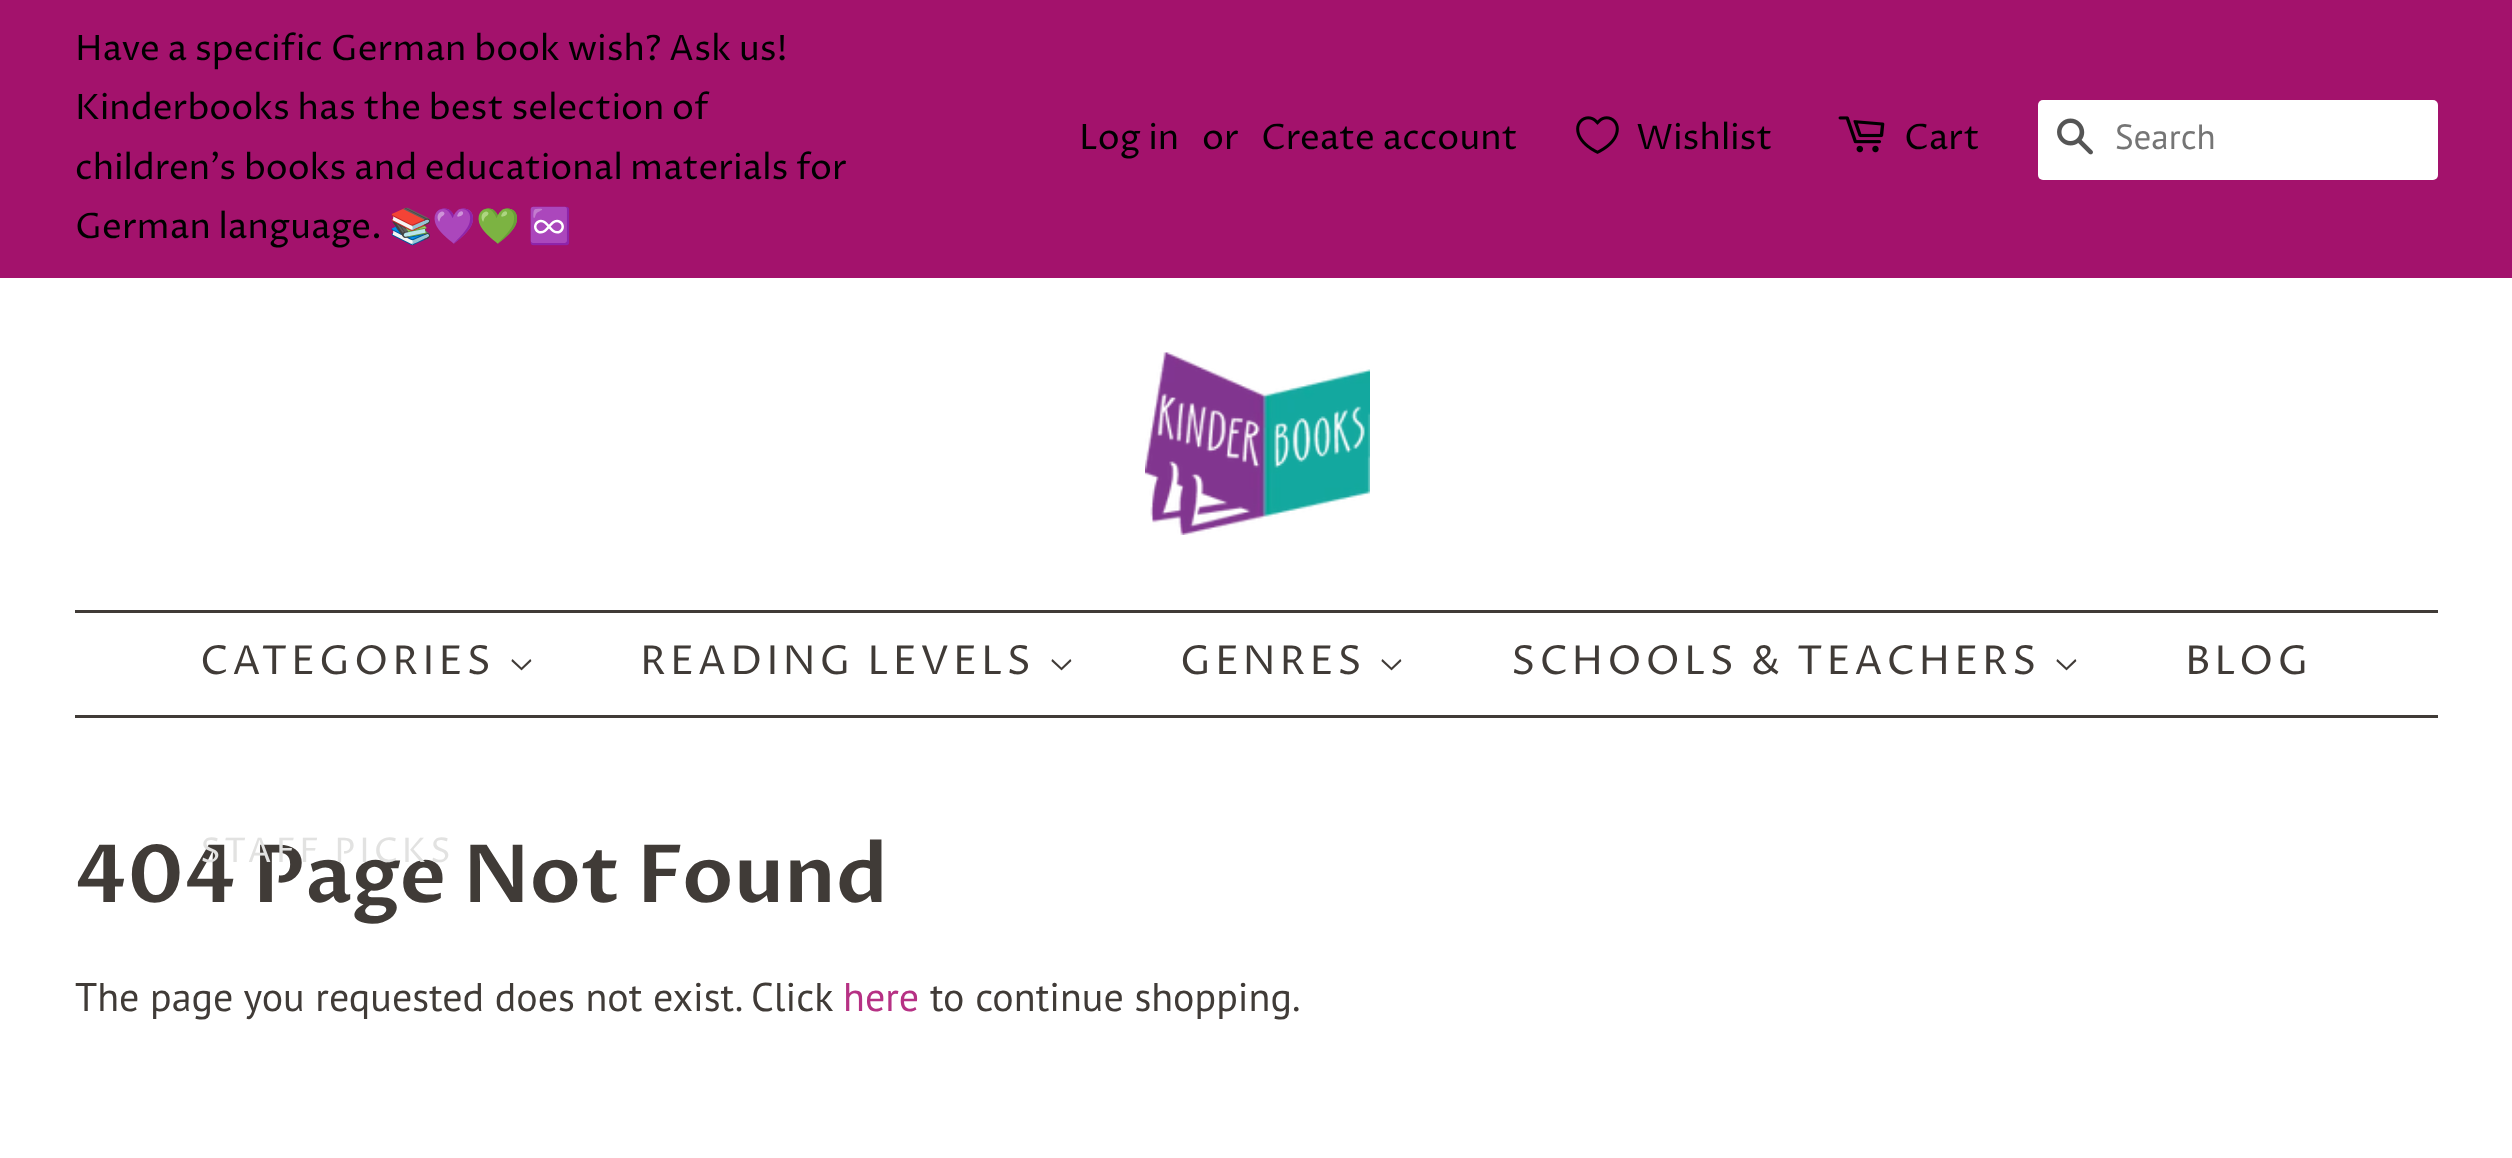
(async () => {
const canvas = document.querySelector("canvas")
canvas.width = 2512
canvas.height = 1158
const c = canvas.getContext("2d")
c.miterLimit = 4
c.fontKerning = "normal"
function T(s,x,y){c.fillText(s,x,y)}
function R(x,y,w,h){c.fillRect(x,y,w,h)}
function Q(x,y,w,h,r){c.beginPath();c.roundRect(x,y,w,h,r);c.fill()}
async function I(src,x,y,w,h){const img=new Image();img.src=src;await img.decode();c.drawImage(img,x,y,w,h)}
c.fillStyle="#fff"
R(0,0,2512,1158)
c.fillStyle="#a3126c"
R(0,0,2512,278)
c.font="35px Proza Libre"
c.fillStyle="#000"
T("Have a specific German book wish? Ask us!",75,60)
T("Kinderbooks has the best selection of",75,119)
T("children's books and educational materials for",75,179)
T("German language.",75,238)
c.font="35px Noto Color Emoji"
T("📚💜💚",389,238)
T("♾️",528,238)
c.font="35px Proza Libre"
T("Log in",1079,149)
T("or",1202,149)
T("Create account",1261,149)
await I("1.png",1576,116,43,38)
T("Wishlist",1636,149)
await I("2.png",1838,116,47,37)
T("Cart",1904,149)
c.fillStyle="#fff"
Q(2038,100,400,80,5)
await I("3.png",2057,118,36,37)
c.font="35px PT Sans"
c.fillStyle="#757575"
T("Search",2115,149)
await I("4.png",1145,352,225,183)
c.fillStyle="#403b37"
R(75,610,2363,3)
R(75,715,2363,3)
c.letterSpacing="4px"
c.font="40px Proza Libre"
T("CATEGORIES",200,674)
await I("5.png",511,659,21,12)
c.letterSpacing="0px"
c.font="600 80px Proza Libre"
T("404 Page Not Found",75,902)
c.letterSpacing="4px"
c.font="34px Proza Libre"
c.fillStyle="#e2e2e1"
T("STAFF PICKS",200,862)
c.font="40px Proza Libre"
c.fillStyle="#403b37"
T("READING LEVELS",640,674)
await I("5.png",1051,659,21,12)
T("GENRES",1180,674)
await I("5.png",1381,659,21,12)
T("SCHOOLS & TEACHERS",1511,674)
await I("5.png",2056,659,21,12)
T("BLOG",2185,674)
c.letterSpacing="0px"
c.font="40px PT Sans"
T("The page you requested does not exist. Click",75,1011)
c.fillStyle="#b63184"
T("here",843,1011)
c.fillStyle="#403b37"
T("to continue shopping.",930,1011)
})()
